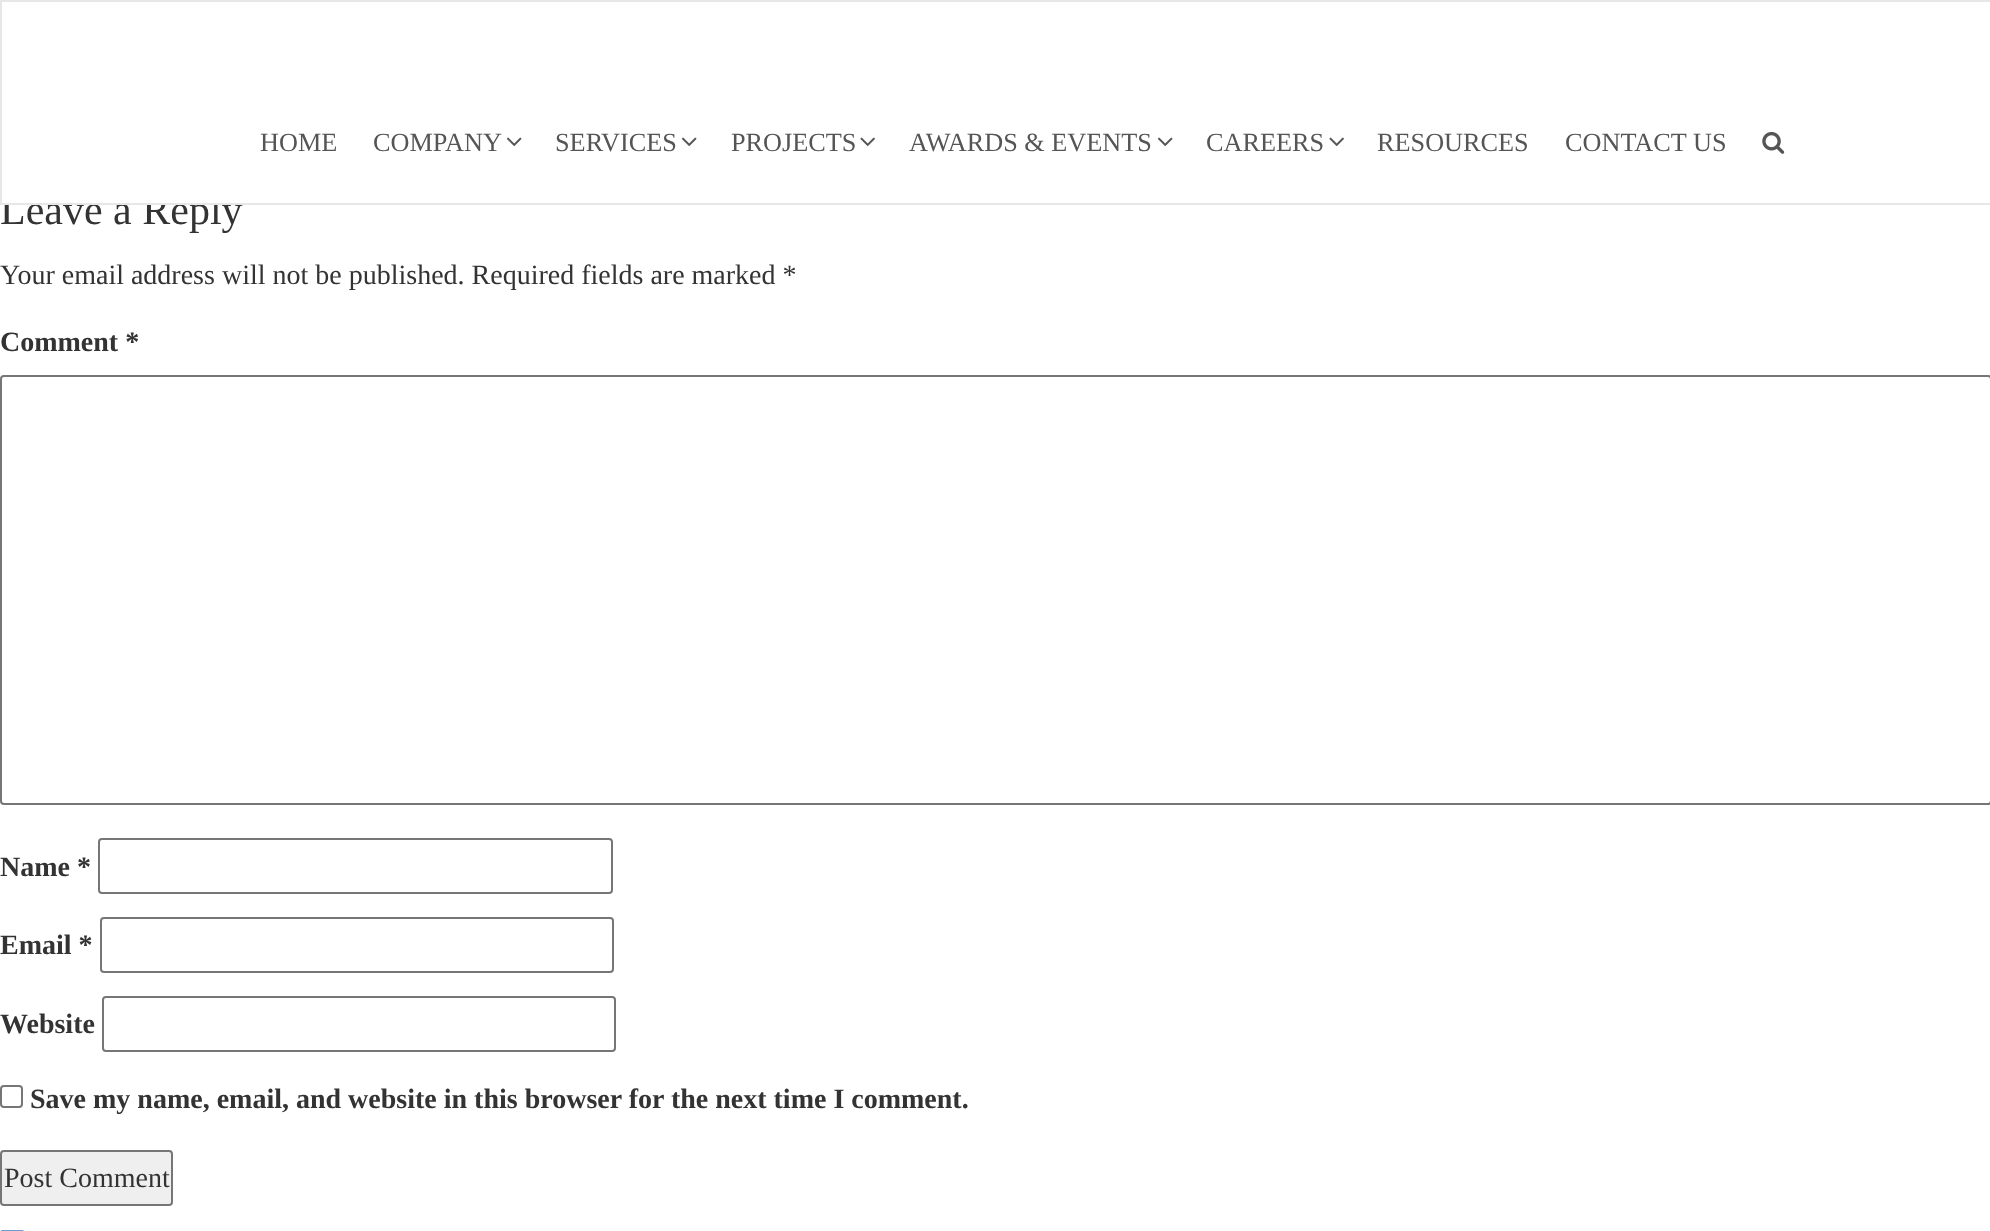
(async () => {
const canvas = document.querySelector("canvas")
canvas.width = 1990
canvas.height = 1231
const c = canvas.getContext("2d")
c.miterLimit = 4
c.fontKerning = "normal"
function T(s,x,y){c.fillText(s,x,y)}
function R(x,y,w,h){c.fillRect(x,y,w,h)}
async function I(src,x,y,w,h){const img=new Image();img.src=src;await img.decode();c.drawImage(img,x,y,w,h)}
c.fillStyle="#fff"
R(0,0,1990,1231)
c.font="42px Liberation Serif"
c.fillStyle="#333"
T("Leave a Reply",0,224)
c.fillStyle="#fff"
R(2,194,216,9)
c.strokeStyle="#e7e7e7"
c.lineWidth=2
c.strokeRect(1,1,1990,203)
c.font="26.25px Liberation Serif"
c.fillStyle="#555"
T("HOME",260,151)
T("COMPANY",373,151)
await I("1.png",506,137,16,9)
T("SERVICES",555,151)
await I("1.png",681,137,16,9)
T("PROJECTS",731,151)
await I("2.png",860,137,15,9)
T("AWARDS & EVENTS",909,151)
await I("1.png",1157,137,16,9)
T("CAREERS",1206,151)
await I("2.png",1329,137,15,9)
T("RESOURCES",1377,151)
T("CONTACT US",1565,151)
await I("3.png",1762,131,23,23)
c.font="28px Liberation Serif"
c.fillStyle="#333"
T("Your email address will not be published. Required fields are marked *",0,284)
c.font="bold 28px Liberation Serif"
T("Comment *",0,351)
c.beginPath()
c.roundRect(1,376,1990,428,3)
c.strokeStyle="#767676"
c.stroke()
T("Name *",0,876)
c.beginPath()
c.roundRect(99,839,513,54,3)
c.stroke()
T("Email *",0,954)
c.beginPath()
c.roundRect(101,918,512,54,3)
c.stroke()
T("Website",0,1033)
c.beginPath()
c.roundRect(103,997,512,54,3)
c.stroke()
c.beginPath()
c.roundRect(1,1086,21,21,3)
c.stroke()
T("Save my name, email, and website in this browser for the next time I comment.",30,1108)
c.fillStyle="#efefef"
c.beginPath()
c.roundRect(1,1151,171,54,3)
c.fill()
c.stroke()
c.font="28px Liberation Serif"
c.fillStyle="#333"
T("Post Comment",4,1187)
await I("4.png",0,1230,24,1)
})()
